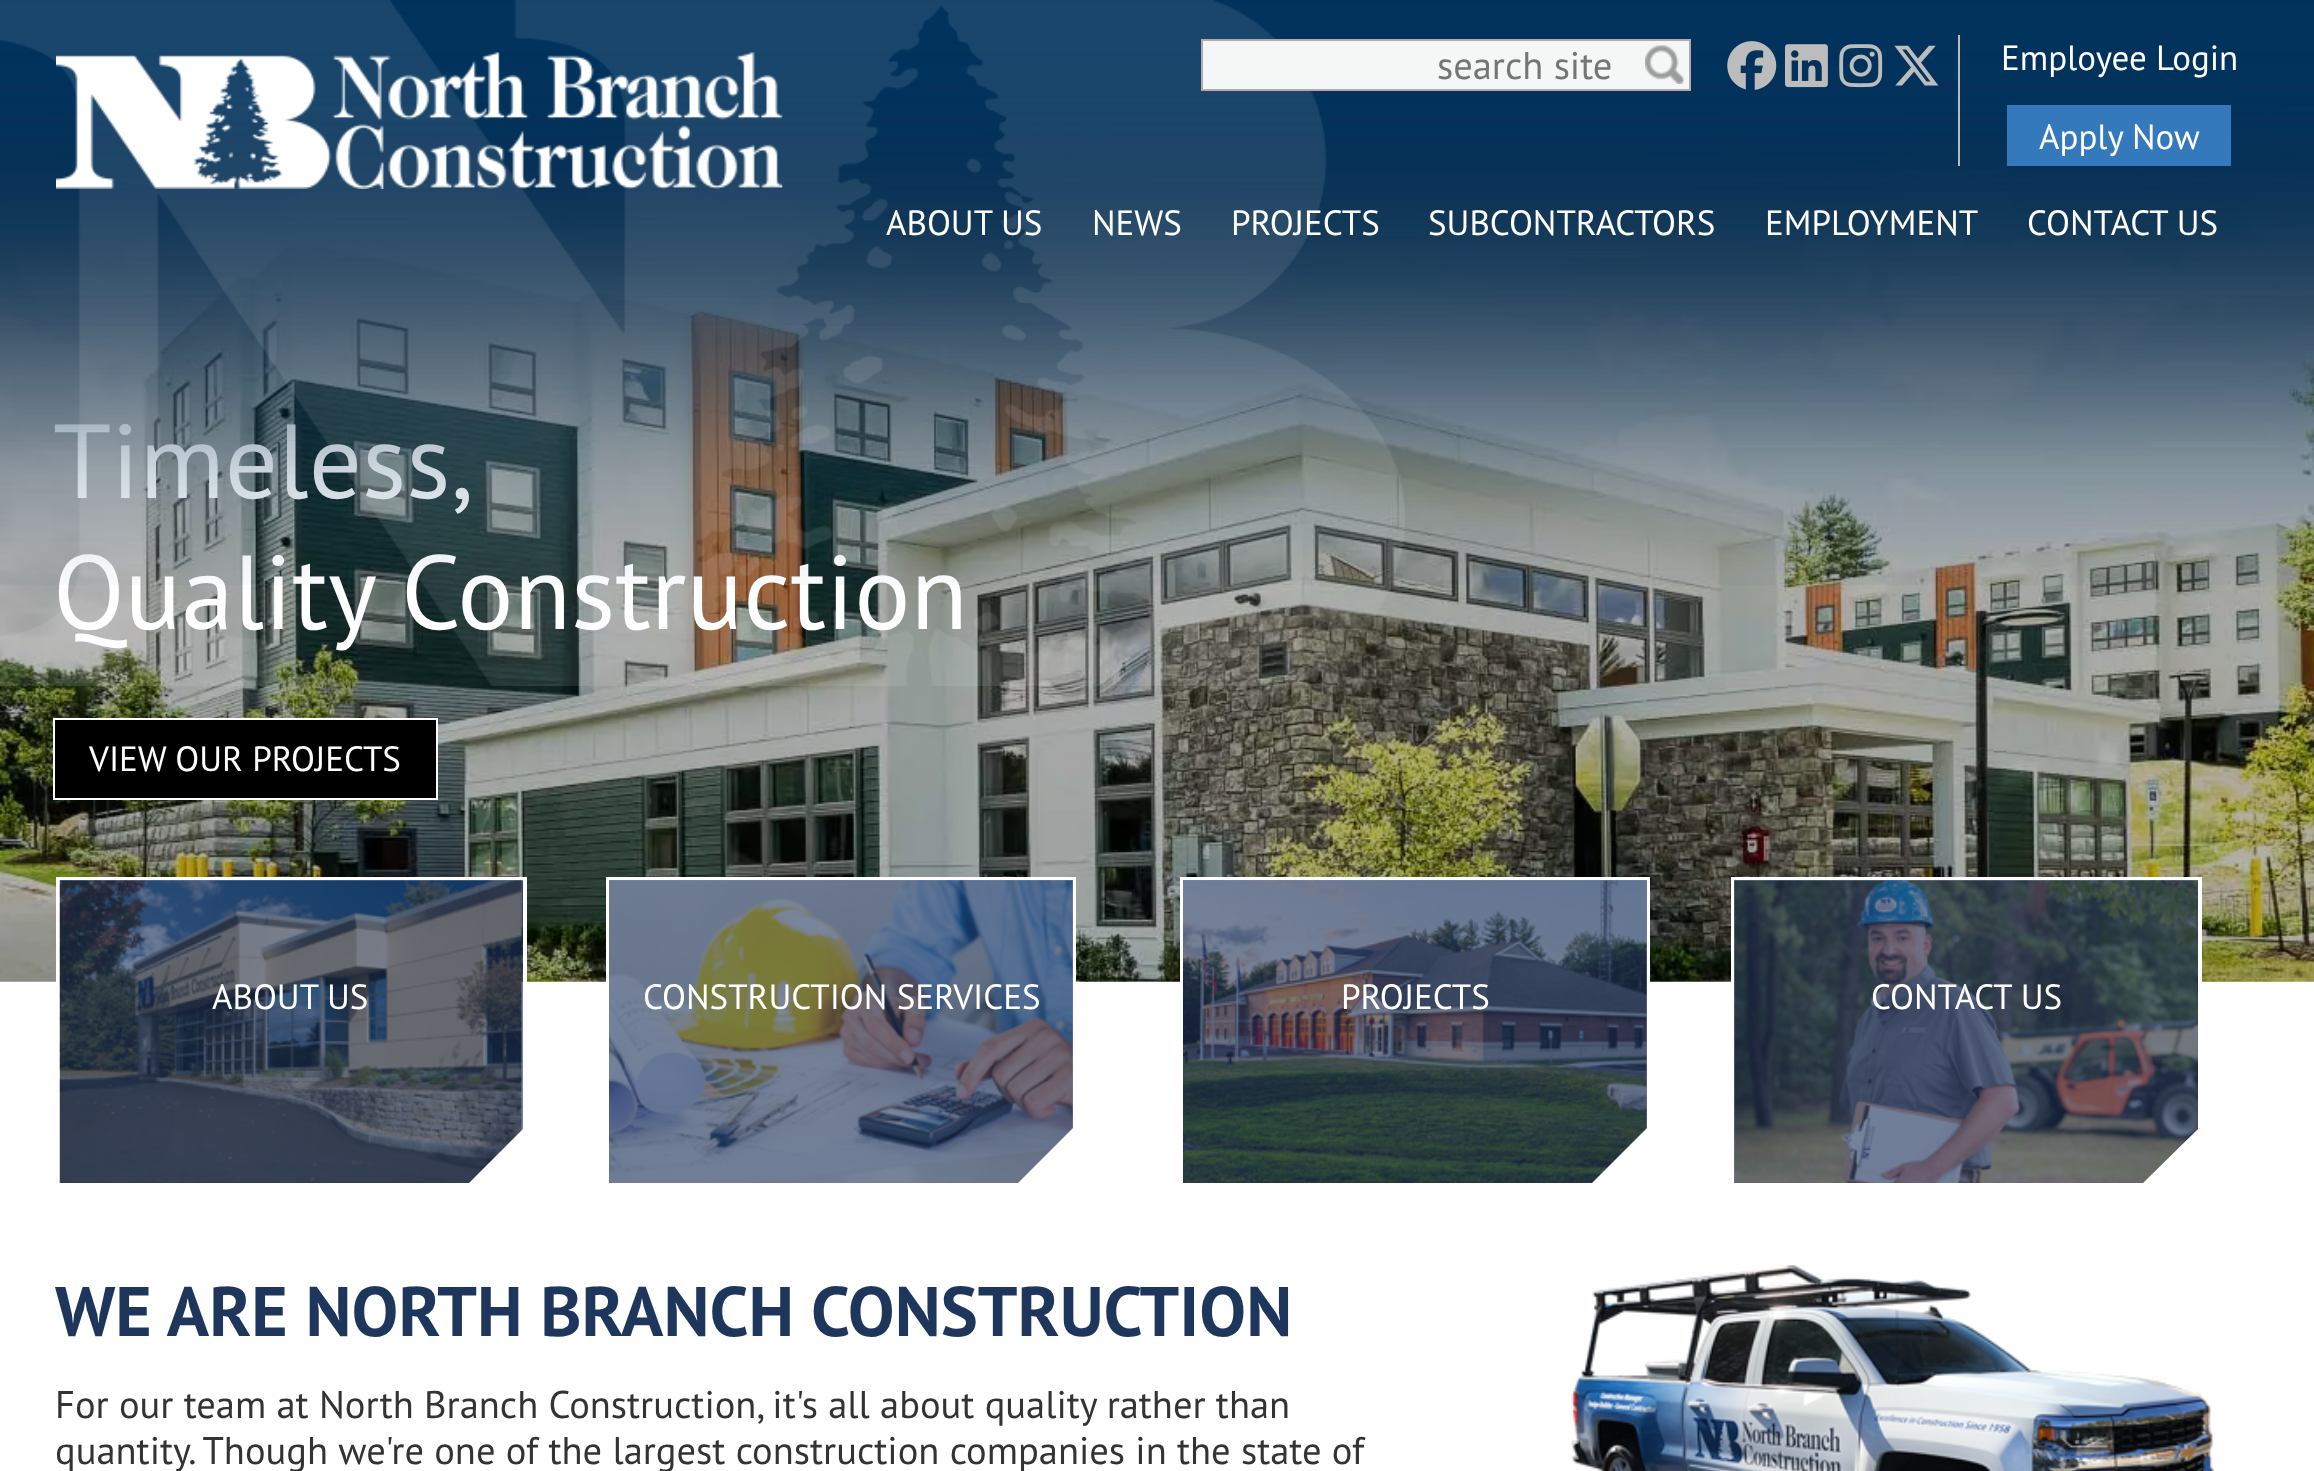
(async () => {
const canvas = document.querySelector("canvas")
canvas.width = 2314
canvas.height = 1471
const c = canvas.getContext("2d")
c.miterLimit = 4
c.fontKerning = "normal"
function T(s,x,y){c.fillText(s,x,y)}
function R(x,y,w,h){c.fillRect(x,y,w,h)}
async function I(src,x,y,w,h){const img=new Image();img.src=src;await img.decode();c.drawImage(img,x,y,w,h)}
let path
c.fillStyle="#fff"
R(0,0,2314,1471)
await I("10.png",0,106,2314,876)
c.font="105px PT Sans"
T("Timeless,",53,498)
T("Quality Construction",53,629)
await I("1.png",0,0,2314,585)
await I("2.png",0,0,1405,686)
await I("3.png",0,0,1405,686)
await I("4.png",56,52,727,137)
c.fillStyle="#f5f6f6"
R(1203,41,486,48)
c.fillStyle="#b4aaab"
R(1201,39,490,2)
R(1201,89,437,2)
R(1201,39,2,52)
c.font="38.5px PT Sans"
c.fillStyle="#757575"
T("search site",1437,79)
await I("5.png",1645,45,39,39)
c.fillStyle="#b4aaab"
R(1689,39,2,52)
R(1638,89,53,2)
await I("6.png",1727,41,50,49)
await I("7.png",1785,44,43,44)
await I("8.png",1839,44,44,44)
await I("9.png",1894,45,45,41)
c.fillStyle="#bcbcbc"
R(1958,35,2,131)
c.font="35px PT Sans"
c.fillStyle="#fff"
T("Employee Login",2001,70)
c.fillStyle="#3479bb"
R(2007,105,224,61)
c.fillStyle="#fff"
T("Apply Now",2039,149)
T("ABOUT US",886,235)
T("NEWS",1092,235)
T("PROJECTS",1231,235)
T("SUBCONTRACTORS",1428,235)
T("EMPLOYMENT",1765,235)
T("CONTACT US",2027,235)
c.fillStyle="#000"
c.beginPath()
c.rect(54,719,383,80)
c.fill()
c.strokeStyle="#fff"
c.lineWidth=2
c.stroke()
c.fillStyle="#fff"
T("VIEW OUR PROJECTS",89,771)
c.lineWidth=4
c.strokeRect(58,879,467,306)
await I("11.png",59,880,463,303)
c.fillStyle="#1f365c99"
R(60,880,463,303)
c.fillStyle="#fff"
T("ABOUT US",212,1009)
c.save()
c.beginPath()
c.rect(60,880,463,303)
c.clip()
path = new Path2D("M527 1186h-61l61-61z")
c.fill(path)
c.restore()
c.strokeRect(608,879,466,306)
await I("12.png",609,880,464,303)
c.fillStyle="#1f365c99"
R(609,880,464,303)
c.fillStyle="#fff"
T("CONSTRUCTION SERVICES",643,1009)
c.save()
c.beginPath()
c.rect(609,880,464,303)
c.clip()
path = new Path2D("M1076 1186h-61l61-61z")
c.fill(path)
c.restore()
c.strokeRect(1182,879,466,306)
await I("13.png",1183,880,464,303)
c.fillStyle="#1f365c99"
R(1183,880,464,303)
c.fillStyle="#fff"
T("PROJECTS",1341,1009)
c.save()
c.beginPath()
c.rect(1183,880,464,303)
c.clip()
path = new Path2D("M1650 1186h-61l61-61z")
c.fill(path)
c.restore()
c.strokeRect(1733,879,467,306)
await I("14.png",1734,880,464,303)
c.fillStyle="#1f365c99"
R(1734,880,464,303)
c.fillStyle="#fff"
T("CONTACT US",1871,1009)
c.save()
c.beginPath()
c.rect(1734,880,464,303)
c.clip()
path = new Path2D("M2202 1186h-62l62-61z")
c.fill(path)
c.restore()
c.font="bold 70px PT Sans"
c.fillStyle="#1f365c"
T("WE ARE NORTH BRANCH CONSTRUCTION",55,1336)
c.font="38.5px PT Sans"
c.fillStyle="#333"
T("For our team at North Branch Construction, it's all about quality rather than",55,1418)
T("quantity. Though we're one of the largest construction companies in the state of",55,1464)
await I("15.png",1571,1265,644,206)
})()
